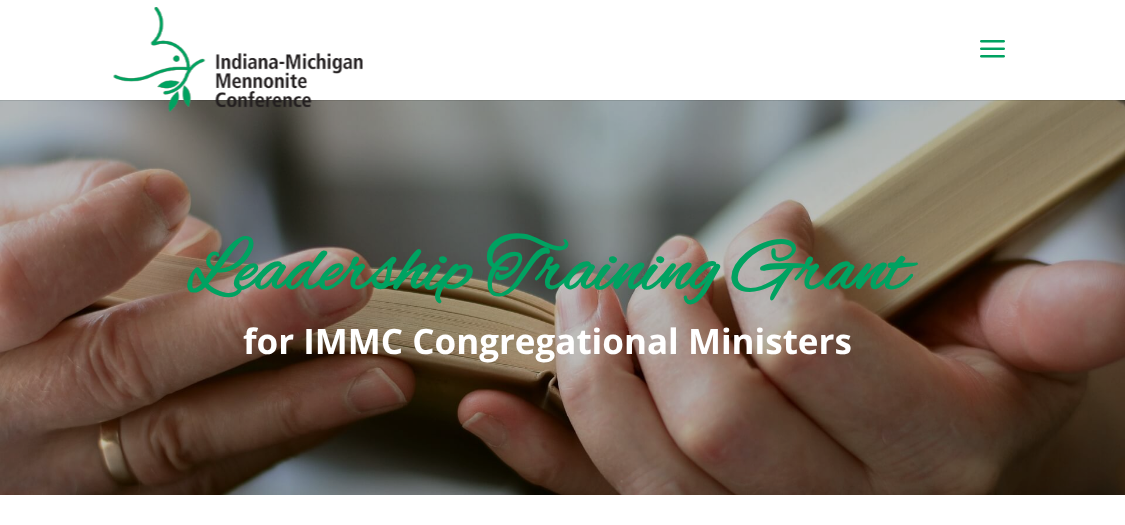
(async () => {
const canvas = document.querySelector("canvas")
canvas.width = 1125
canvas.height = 525
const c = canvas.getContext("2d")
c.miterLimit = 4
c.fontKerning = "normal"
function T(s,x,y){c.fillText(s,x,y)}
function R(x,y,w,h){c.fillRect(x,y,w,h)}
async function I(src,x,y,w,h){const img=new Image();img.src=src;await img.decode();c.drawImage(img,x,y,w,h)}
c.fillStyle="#fff"
R(0,0,1125,525)
await I("3.png",0,100,1125,395)
c.fillStyle="#0000001a"
R(0,100,1125,1)
await I("1.png",113,7,250,105)
await I("2.png",980,40,25,18)
c.font="bold 75px Alex Brush"
c.fillStyle="#00a261"
T("Leadership Training Grant",187,289)
c.font="bold 35px Open Sans"
c.fillStyle="#fff"
T("for IMMC Congregational Ministers",243,354)
})()
